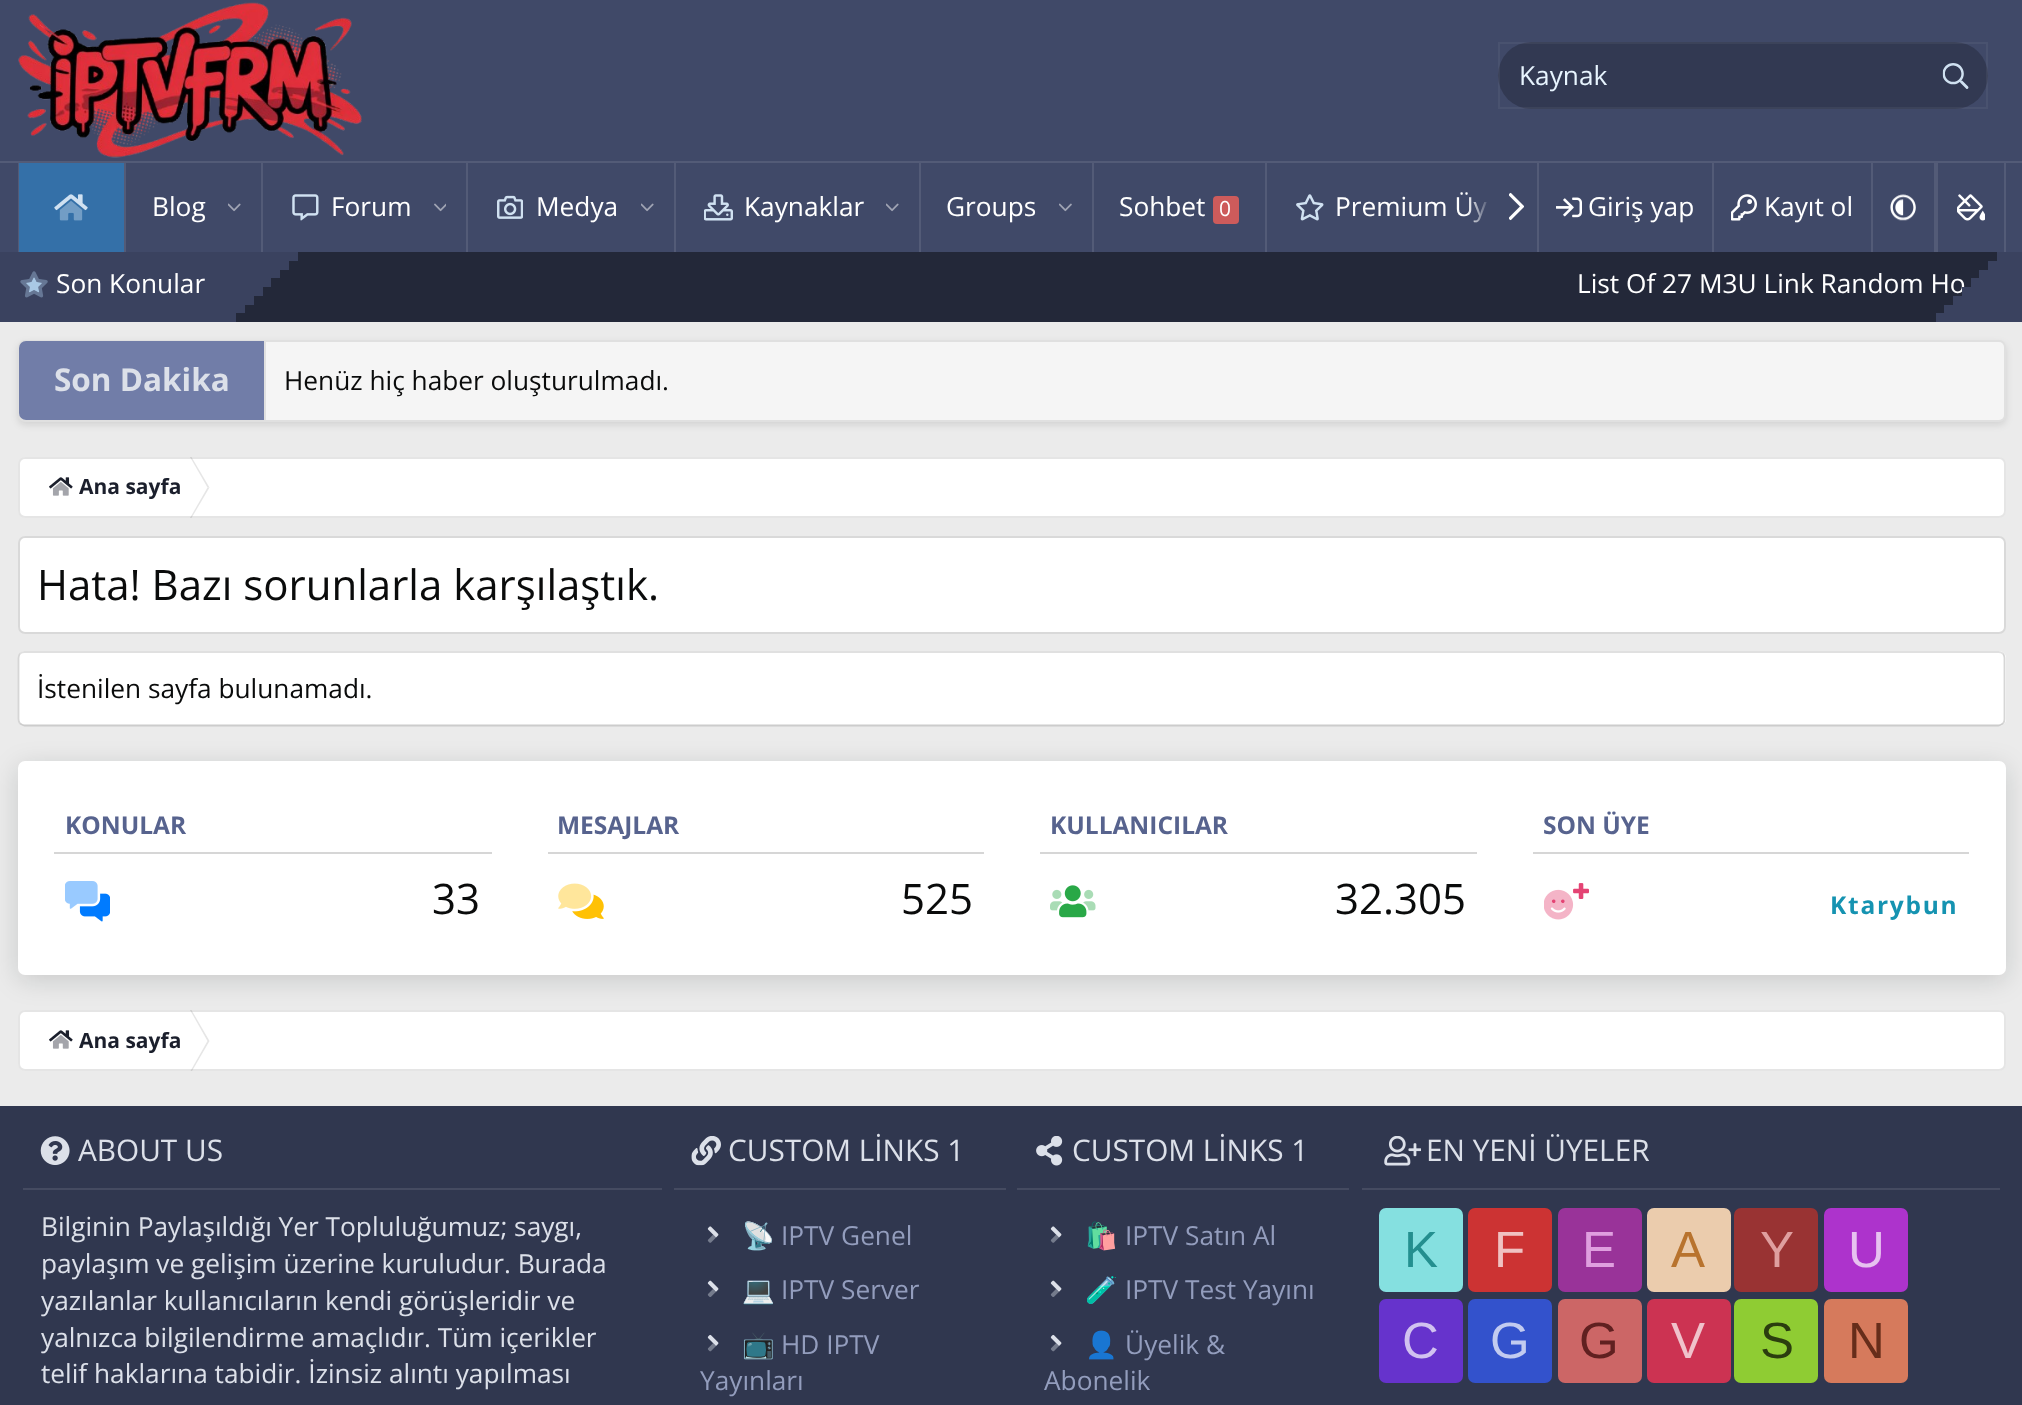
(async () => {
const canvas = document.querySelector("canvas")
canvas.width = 2022
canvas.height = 1405
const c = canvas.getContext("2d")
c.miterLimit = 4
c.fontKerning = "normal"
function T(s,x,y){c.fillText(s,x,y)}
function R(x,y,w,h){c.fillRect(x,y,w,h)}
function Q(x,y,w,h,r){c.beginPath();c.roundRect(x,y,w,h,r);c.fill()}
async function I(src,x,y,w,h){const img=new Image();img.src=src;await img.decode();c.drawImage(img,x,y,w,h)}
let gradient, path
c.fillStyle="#ebebeb"
R(0,0,2022,1405)
c.fillStyle="#404968"
R(0,0,2022,161)
await I("1.png",18,2,344,156)
c.fillStyle="#323952"
Q(1498,42,490,67,33.5)
c.strokeStyle="#ffffff0d"
c.lineWidth=2
c.strokeRect(1499,43,488,65)
c.font="26.25px Open Sans"
c.fillStyle="#e7f4fe"
T("Kaynak",1519,85)
await I("2.png",1942,63,27,26)
c.fillStyle="#404968"
R(0,163,2022,89)
c.fillStyle="#535b77"
R(0,161,2022,2)
R(18,163,1,89)
c.fillStyle="#3470a8"
R(19,163,105,89)
await I("3.png",54,194,34,27)
c.fillStyle="#535b77"
R(124,163,2,89)
c.fillStyle="#fff"
T("Blog",152,216)
await I("4.png",228,203,13,9)
c.fillStyle="#535b77"
R(261,163,2,89)
await I("5.png",292,194,27,27)
c.fillStyle="#fff"
T("Forum",331,216)
await I("6.png",434,203,12,9)
c.fillStyle="#535b77"
R(466,163,2,89)
await I("7.png",497,195,26,24)
c.fillStyle="#fff"
T("Medya",536,216)
await I("4.png",641,203,13,9)
c.fillStyle="#535b77"
R(674,163,2,89)
await I("8.png",704,194,29,27)
c.fillStyle="#fff"
T("Kaynaklar",744,216)
await I("4.png",886,203,13,9)
c.fillStyle="#535b77"
R(919,163,2,89)
c.fillStyle="#fff"
T("Groups",946,216)
await I("9.png",1059,203,13,9)
c.fillStyle="#535b77"
R(1092,163,2,89)
c.fillStyle="#fff"
T("Sohbet",1119,216)
c.fillStyle="#cd5b5b"
Q(1213,196,26,28,4)
c.font="21px Open Sans"
c.fillStyle="#fff"
T("0",1219,216)
c.fillStyle="#535b77"
R(1265,163,2,89)
await I("10.png",1296,194,28,27)
c.font="26.25px Open Sans"
c.fillStyle="#fff"
T("Premium Üy",1335,216)
gradient = c.createLinearGradient(1467,207,1537,207)
gradient.addColorStop(0,"#40496800")
gradient.addColorStop(.33,"#404968")
c.fillStyle = gradient
R(1467,193,20,30)
await I("11.png",1509,192,15,29)
c.fillStyle="#535b77"
R(1537,163,2,89)
await I("12.png",1556,197,26,21)
c.fillStyle="#fff"
T("Giriş yap",1588,216)
c.fillStyle="#535b77"
R(1712,163,2,89)
await I("13.png",1731,194,26,27)
c.fillStyle="#fff"
T("Kayıt ol",1764,216)
c.fillStyle="#535b77"
R(1934,163,4,89)
R(1871,163,2,89)
await I("14.png",1890,194,26,27)
R(2004,163,2,89)
await I("15.png",1957,194,28,27)
c.fillStyle="#232839"
R(236,252,1761,70)
c.fillStyle="#3a425f"
R(0,252,298,9)
R(0,261,289,9)
R(0,270,280,8)
R(0,278,271,9)
R(0,287,263,9)
R(0,296,254,9)
R(0,305,245,8)
R(0,313,236,9)
c.fillStyle="#fff"
T("List Of 27 M3U Link Random Ho",1577,293)
c.fillStyle="#3a425f"
R(1997,252,25,9)
R(1988,261,34,9)
R(1979,270,43,8)
R(1971,278,51,9)
R(1962,287,60,9)
R(1953,296,69,9)
R(1944,305,78,8)
R(1936,313,86,9)
await I("16.png",20,271,28,27)
c.fillStyle="#fff"
T("Son Konular",56,293)
c.fillStyle="#0000001a"
c.filter="blur(3.5px)"
c.beginPath()
c.roundRect(18,343,1988,82,7)
c.fill()
c.filter="none"
c.fillStyle="#f5f5f5"
c.beginPath()
c.roundRect(19,341,1986,80,6)
c.fill()
c.strokeStyle="#e0e0e0"
c.stroke()
c.fillStyle="#717da8"
c.beginPath()
c.roundRect(19,341,247,79,[7,0,0,7])
c.fill()
c.fillStyle="#e0e0e0"
R(264,341,2,79)
c.font="bold 31.5px Open Sans"
c.fillStyle="#dce0e9"
T("Son Dakika",54,391)
c.font="26.25px Open Sans"
c.fillStyle="#0a0b0b"
T("Henüz hiç haber oluşturulmadı.",284,390)
c.fillStyle="#fff"
Q(18,457,1988,61,7)
await I("17.png",49,477,24,19)
c.fillStyle="#e6e6e6"
path = new Path2D("M191.5 457l18 30.5h-2l-17.5-30.5z")
c.fill(path)
path = new Path2D("M207.5 487.5h2l-18 30.5h-1.5z")
c.fill(path)
c.beginPath()
c.roundRect(19,458,1986,59,6)
c.strokeStyle="#0000001a"
c.stroke()
c.font="bold 21px Open Sans"
c.fillStyle="#1b1f2c"
T("Ana sayfa",79,494)
c.fillStyle="#fff"
Q(18,536,1988,98,7)
c.beginPath()
c.roundRect(19,537,1986,96,6)
c.strokeStyle="#00000026"
c.stroke()
c.font="42px Open Sans"
c.fillStyle="#0a0b0b"
T("Hata! Bazı sorunlarla karşılaştık.",37,600)
c.fillStyle="#fff"
Q(18,651,1988,75,7)
path = new Path2D("M20 653.5c1.5-1 3-1.5 4.5-1.5h1974c1.5 0 3 .5 4.5 1.5")
c.strokeStyle="#e0e0e0"
c.lineWidth=1.8
c.stroke(path)
path = new Path2D("M2003 653.5c1 1.5 1.5 3 1.5 4.5v61c0 2-.5 3.5-1.5 4.5")
c.strokeStyle="#d6d6d6"
c.stroke(path)
path = new Path2D("M2003 723.5c-1.5 1-3 2-4.5 2h-1974c-1.5 0-3-1-4.5-2")
c.strokeStyle="#ccc"
c.stroke(path)
path = new Path2D("M20 723.5c-1-1-1.5-2.5-1.5-4.5v-61c0-1.5 .5-3 1.5-4.5")
c.strokeStyle="#d6d6d6"
c.stroke(path)
c.font="26.25px Open Sans"
c.fillStyle="#0a0b0b"
T("İstenilen sayfa bulunamadı.",37,698)
c.fillStyle="#0a0b0b26"
c.filter="blur(13px)"
c.beginPath()
c.roundRect(18,767,1988,213,7)
c.fill()
c.filter="none"
c.fillStyle="#fff"
Q(18,761,1988,214,7)
c.fillStyle="#d6d6d6"
R(54,852,438,2)
c.font="bold 24.5px Open Sans"
c.fillStyle="#57638e"
T("KONULAR",65,834)
await I("18.png",65,881,45,41)
c.font="42px Open Sans"
c.fillStyle="#0a0b0b"
T("33",432,914)
c.fillStyle="#d6d6d6"
R(548,852,436,2)
c.font="bold 24.5px Open Sans"
c.fillStyle="#57638e"
T("MESAJLAR",557,834)
await I("19.png",558,883,46,36)
c.font="42px Open Sans"
c.fillStyle="#0a0b0b"
T("525",901,914)
c.fillStyle="#d6d6d6"
R(1040,852,437,2)
c.font="bold 24.5px Open Sans"
c.fillStyle="#57638e"
T("KULLANICILAR",1050,834)
await I("20.png",1050,885,46,33)
c.font="42px Open Sans"
c.fillStyle="#0a0b0b"
T("32.305",1335,914)
c.fillStyle="#d6d6d6"
R(1533,852,436,2)
c.font="bold 24.5px Open Sans"
c.fillStyle="#57638e"
T("SON ÜYE",1543,834)
await I("21.png",1544,883,45,37)
c.letterSpacing="1.75px"
c.fillStyle="#1593b1"
T("Ktarybun",1830,914)
c.fillStyle="#fff"
Q(18,1010,1988,61,7)
await I("17.png",49,1030,24,19)
c.fillStyle="#e6e6e6"
path = new Path2D("M191.5 1010l18 31h-2l-17.5-31zm16 31h2l-17.5 30h-1.5z")
c.fill(path)
c.beginPath()
c.roundRect(19,1011,1986,59,6)
c.strokeStyle="#0000001a"
c.lineWidth=2
c.stroke()
c.letterSpacing="0px"
c.font="bold 21px Open Sans"
c.fillStyle="#1b1f2c"
T("Ana sayfa",79,1048)
c.fillStyle="#30374f"
R(0,1106,2022,299)
c.fillStyle="#454b61"
R(23,1188,639,2)
await I("22.png",40,1136,30,29)
c.font="29.75px Open Sans"
c.fillStyle="#dce0e9"
T("ABOUT US",78,1161)
c.font="26.25px Open Sans"
T("Bilginin Paylaşıldığı Yer Topluluğumuz; saygı,",41,1236)
T("paylaşım ve gelişim üzerine kuruludur. Burada",41,1273)
T("yazılanlar kullanıcıların kendi görüşleridir ve",41,1310)
T("yalnızca bilgilendirme amaçlıdır. Tüm içerikler",41,1347)
T("telif haklarına tabidir. İzinsiz alıntı yapılması",41,1383)
c.fillStyle="#454b61"
R(674,1188,332,2)
await I("23.png",691,1136,30,30)
c.font="29.75px Open Sans"
c.fillStyle="#dce0e9"
T("CUSTOM LİNKS 1",728,1161)
await I("24.png",707,1226,12,17)
c.font="26.25px Noto Color Emoji"
c.fillStyle="#939dbd"
T("📡",742,1245)
c.font="26.25px Open Sans"
T("IPTV Genel",781,1245)
await I("25.png",707,1280,12,17)
c.font="26.25px Noto Color Emoji"
T("💻",742,1299)
c.font="26.25px Open Sans"
T("IPTV Server",781,1299)
await I("26.png",707,1334,12,18)
c.font="26.25px Noto Color Emoji"
T("📺",742,1354)
c.font="26.25px Open Sans"
T("HD IPTV",781,1354)
T("Yayınları",700,1390)
c.fillStyle="#454b61"
R(1017,1188,332,2)
await I("27.png",1036,1136,27,30)
c.font="29.75px Open Sans"
c.fillStyle="#dce0e9"
T("CUSTOM LİNKS 1",1072,1161)
await I("24.png",1050,1226,12,17)
c.font="26.25px Noto Color Emoji"
c.fillStyle="#939dbd"
T("🛍️",1085,1245)
c.font="26.25px Open Sans"
T("IPTV Satın Al",1125,1245)
await I("25.png",1050,1280,12,17)
c.font="26.25px Noto Color Emoji"
T("🧪",1085,1299)
c.font="26.25px Open Sans"
T("IPTV Test Yayını",1125,1299)
await I("26.png",1050,1334,12,18)
c.font="26.25px Noto Color Emoji"
T("👤",1085,1354)
c.font="26.25px Open Sans"
T("Üyelik &",1125,1354)
T("Abonelik",1044,1390)
c.fillStyle="#454b61"
R(1362,1188,638,2)
await I("28.png",1384,1136,37,30)
c.font="29.75px Open Sans"
c.fillStyle="#dce0e9"
T("EN YENİ ÜYELER",1426,1161)
c.fillStyle="#85e0e0"
Q(1379,1208,84,84,7)
c.font="51px Liberation Sans"
c.fillStyle="#248f8f"
T("K",1404,1267)
c.fillStyle="#c33"
Q(1468,1208,84,84,7)
c.fillStyle="#f0c2c2"
T("F",1494,1267)
c.fillStyle="#939"
Q(1558,1208,84,84,7)
c.fillStyle="#df9fdf"
T("E",1582,1267)
c.fillStyle="#ebccad"
Q(1647,1208,84,84,7)
c.fillStyle="#b8732e"
T("A",1671,1267)
c.fillStyle="#933"
Q(1734,1208,84,84,7)
c.fillStyle="#df9f9f"
T("Y",1760,1267)
c.fillStyle="#ad33cc"
Q(1824,1208,84,84,7)
c.fillStyle="#e7c2f0"
T("U",1848,1267)
c.fillStyle="#63c"
Q(1379,1299,84,84,7)
c.fillStyle="#d1c2f0"
T("C",1402,1358)
c.fillStyle="#3352cc"
Q(1468,1299,84,84,7)
c.fillStyle="#c2cbf0"
T("G",1490,1358)
c.fillStyle="#c66"
Q(1558,1299,84,84,7)
c.fillStyle="#602020"
T("G",1579,1358)
c.fillStyle="#cc3352"
Q(1647,1299,84,84,7)
c.fillStyle="#f0c2cb"
T("V",1671,1358)
c.fillStyle="#8fcc33"
Q(1734,1299,84,84,7)
c.fillStyle="#2b3d0f"
T("S",1760,1358)
c.fillStyle="#d67a5c"
Q(1824,1299,84,84,7)
c.fillStyle="#662d1a"
T("N",1848,1358)
})()
